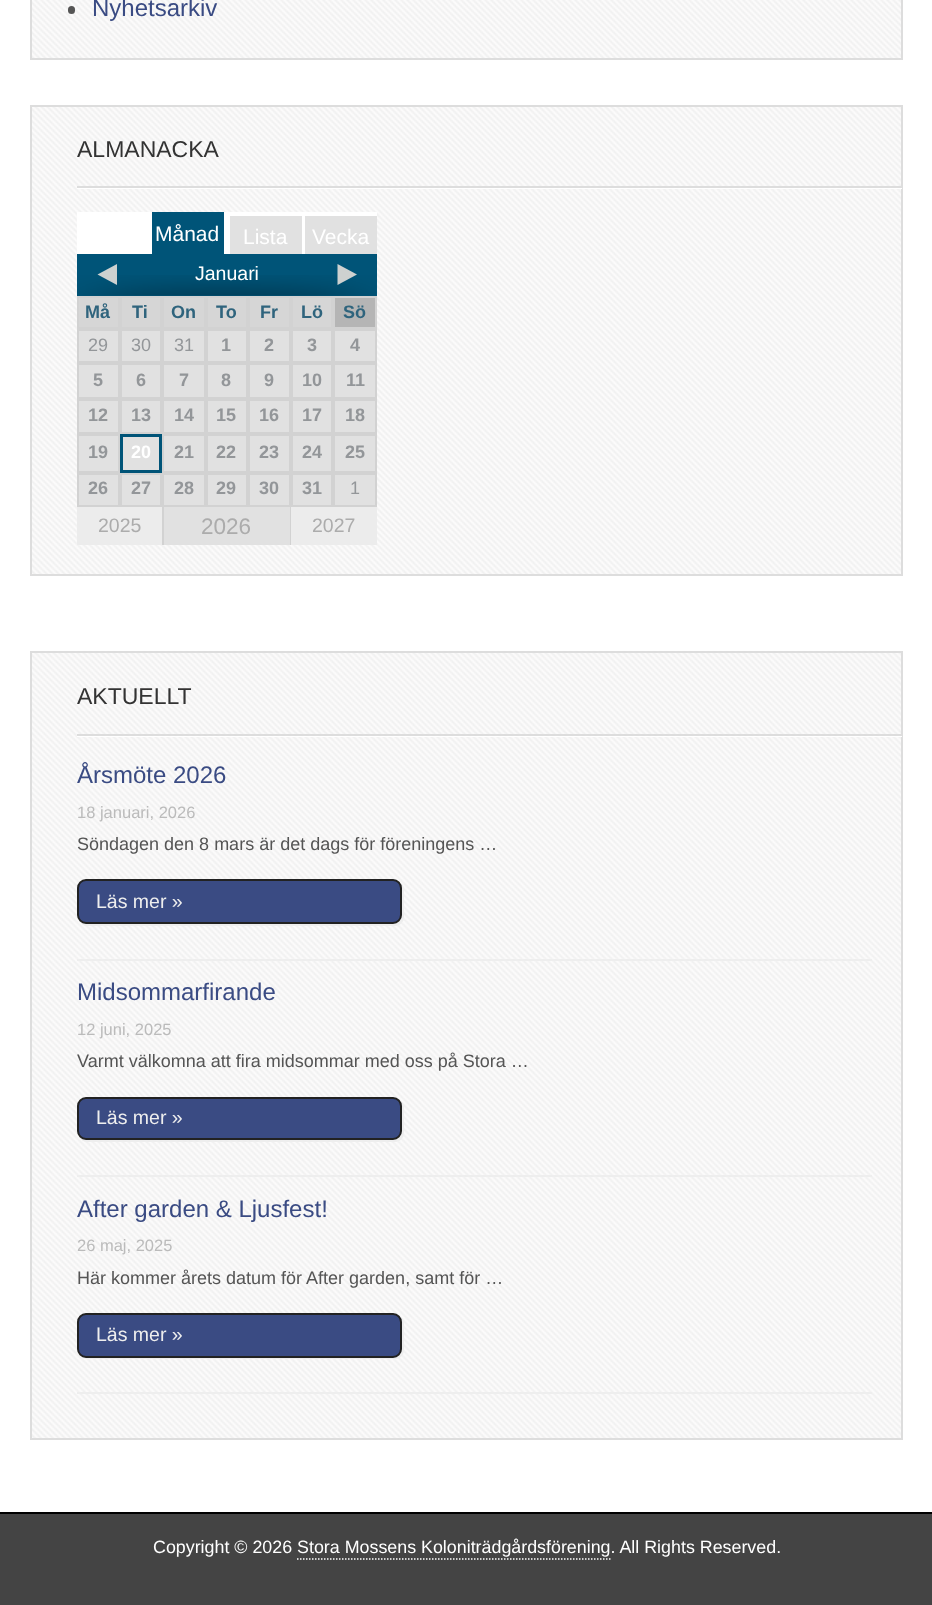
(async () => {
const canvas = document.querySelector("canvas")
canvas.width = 932
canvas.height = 1605
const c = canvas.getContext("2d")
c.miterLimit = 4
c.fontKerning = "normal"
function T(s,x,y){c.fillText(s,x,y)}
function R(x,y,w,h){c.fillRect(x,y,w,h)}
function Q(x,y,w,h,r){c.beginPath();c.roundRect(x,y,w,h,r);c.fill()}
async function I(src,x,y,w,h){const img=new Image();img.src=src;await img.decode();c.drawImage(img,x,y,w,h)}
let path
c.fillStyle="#fff"
R(0,0,932,1605)
await I("1.png",32,0,869,58)
c.strokeStyle="#ddd"
c.lineWidth=2
c.strokeRect(31,-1,871,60)
c.fillStyle="#555"
Q(68,6,7,8,3.5)
c.font="24px Liberation Sans"
c.fillStyle="#3a4b83"
T("Nyhetsarkiv",92,16)
await I("2.png",32,107,869,467)
c.strokeRect(31,106,871,469)
c.fillStyle="#fff"
path = new Path2D("M77 188v1h825v-81v80z")
c.fill(path)
c.fillStyle="#ddd"
R(77,186,825,2)
c.font="23px Liberation Sans"
c.fillStyle="#333"
T("ALMANACKA",77,157)
c.fillStyle="#e1e1e1"
R(79,331,296,214)
c.fillStyle="#fff"
R(77,212,300,42)
c.fillStyle="#005478"
R(152,212,72,42)
c.font="21px Liberation Sans"
c.fillStyle="#fff"
T("Månad",155,241)
c.fillStyle="#e1e1e1"
R(230,216,72,38)
c.fillStyle="#fff"
T("Lista",243,244)
c.fillStyle="#e1e1e1"
R(305,216,72,38)
c.fillStyle="#fff"
T("Vecka",312,244)
c.fillStyle="#005478"
R(77,254,300,42)
await I("3.png",77,275,299,21)
c.fillStyle="#ced1d0"
path = new Path2D("M117 264v21l-19.5-10.5z")
c.fill(path)
c.font="19.5px Liberation Sans"
c.fillStyle="#fff"
T("Januari",195,280)
c.fillStyle="#ced1d0"
path = new Path2D("M337.5 285v-21l19.5 10.5z")
c.fill(path)
c.fillStyle="#d6d6d6"
R(79,298,252,29)
c.strokeStyle="#d2d2d2"
c.strokeRect(78,297,41,31)
c.font="bold 18px Liberation Sans"
c.fillStyle="#2f647d"
T("Må",85,318)
c.strokeRect(121,297,40,31)
T("Ti",132,318)
c.strokeRect(163,297,42,31)
T("On",171,318)
c.strokeRect(207,297,40,31)
T("To",216,318)
c.strokeRect(249,297,41,31)
T("Fr",260,318)
c.strokeRect(292,297,40,31)
T("Lö",301,318)
c.fillStyle="#b5b5b5"
c.beginPath()
c.rect(334,297,42,31)
c.fill()
c.stroke()
c.fillStyle="#2f647d"
T("Sö",343,318)
c.strokeRect(78,330,41,32)
c.font="18px Liberation Sans"
c.fillStyle="#939699"
T("29",88,351)
c.strokeRect(121,330,40,32)
T("30",131,351)
c.strokeRect(163,330,42,32)
T("31",174,351)
c.strokeRect(207,330,40,32)
c.font="bold 18px Liberation Sans"
T("1",221,351)
c.strokeRect(249,330,41,32)
T("2",264,351)
c.strokeRect(292,330,40,32)
T("3",307,351)
c.strokeRect(334,330,42,32)
T("4",350,351)
c.strokeRect(78,364,41,34)
T("5",93,386)
c.strokeRect(121,364,40,34)
T("6",136,386)
c.strokeRect(163,364,42,34)
T("7",179,386)
c.strokeRect(207,364,40,34)
T("8",221,386)
c.strokeRect(249,364,41,34)
T("9",264,386)
c.strokeRect(292,364,40,34)
T("10",302,386)
c.strokeRect(334,364,42,34)
T("11",346,386)
c.strokeRect(78,400,41,33)
T("12",88,421)
c.strokeRect(121,400,40,33)
T("13",131,421)
c.strokeRect(163,400,42,33)
T("14",174,421)
c.strokeRect(207,400,40,33)
T("15",216,421)
c.strokeRect(249,400,41,33)
T("16",259,421)
c.strokeRect(292,400,40,33)
T("17",302,421)
c.strokeRect(334,400,42,33)
T("18",345,421)
c.strokeRect(78,435,41,37)
T("19",88,458)
c.strokeStyle="#005478"
c.lineWidth=3
c.strokeRect(121.5,435.5,39,36)
c.fillStyle="#fff"
T("20",131,458)
c.strokeStyle="#d2d2d2"
c.lineWidth=2
c.strokeRect(163,435,42,37)
c.fillStyle="#939699"
T("21",174,458)
c.strokeRect(207,435,40,37)
T("22",216,458)
c.strokeRect(249,435,41,37)
T("23",259,458)
c.strokeRect(292,435,40,37)
T("24",302,458)
c.strokeRect(334,435,42,37)
T("25",345,458)
c.strokeRect(78,474,41,32)
T("26",88,494)
c.strokeRect(121,474,40,32)
T("27",131,494)
c.strokeRect(163,474,42,32)
T("28",174,494)
c.strokeRect(207,474,40,32)
T("29",216,494)
c.strokeRect(249,474,41,32)
T("30",259,494)
c.strokeRect(292,474,40,32)
T("31",302,494)
c.strokeRect(334,474,42,32)
c.font="18px Liberation Sans"
T("1",350,494)
c.fillStyle="#ececec"
R(77,507,85,38)
c.font="19.5px Liberation Sans"
c.fillStyle="#acacac"
T("2025",98,532)
c.fillStyle="#d2d2d2"
R(290,507,1,38)
R(162,507,2,38)
c.font="22.5px Liberation Sans"
c.fillStyle="#acacac"
T("2026",201,534)
c.fillStyle="#ececec"
R(291,507,86,38)
c.font="19.5px Liberation Sans"
c.fillStyle="#acacac"
T("2027",312,532)
await I("4.png",32,653,869,785)
c.strokeStyle="#ddd"
c.strokeRect(31,652,871,787)
c.fillStyle="#fff"
path = new Path2D("M77 735v2h825v-83v81z")
c.fill(path)
c.fillStyle="#ddd"
R(77,734,825,2)
c.font="23px Liberation Sans"
c.fillStyle="#333"
T("AKTUELLT",77,704)
c.fillStyle="#eee"
R(77,959,795,2)
c.font="24px Liberation Sans"
c.fillStyle="#3a4b83"
T("Årsmöte 2026",77,783)
c.font="16.5px Liberation Sans"
c.fillStyle="#bbb"
T("18 januari, 2026",77,818)
c.font="18px Liberation Sans"
c.fillStyle="#555"
T("Söndagen den 8 mars är det dags för föreningens …",77,850)
c.fillStyle="#eee"
path = new Path2D("M79 921c2 3 5 5 8 5h308c5 0 9-4 9-9v-27c0-3-1-6-4-7c1 1 2 3 2 5v27c0 5-4 9-9 9h-307c-3 0-5-1-7-3z")
c.fill(path)
c.fillStyle="#3a4b83"
c.beginPath()
c.roundRect(78,880,323,43,8)
c.fill()
c.strokeStyle="#222"
c.stroke()
c.font="19.5px Liberation Sans"
c.fillStyle="#eee"
T("Läs mer »",96,908)
R(77,1175,795,2)
c.font="24px Liberation Sans"
c.fillStyle="#3a4b83"
T("Midsommarfirande",77,1000)
c.font="16.5px Liberation Sans"
c.fillStyle="#bbb"
T("12 juni, 2025",77,1035)
c.font="18px Liberation Sans"
c.fillStyle="#555"
T("Varmt välkomna att fira midsommar med oss på Stora …",77,1067)
c.fillStyle="#eee"
path = new Path2D("M79 1137c2 3 5 5 8 5h308c5 0 9-4 9-9v-26c0-3-2-6-5-8c2 2 3 4 3 7v25c0 5-4 9-9 9h-307c-3 0-5-1-7-3z")
c.fill(path)
c.fillStyle="#3a4b83"
c.beginPath()
c.roundRect(78,1098,323,41,8)
c.fill()
c.stroke()
c.font="19.5px Liberation Sans"
c.fillStyle="#eee"
T("Läs mer »",96,1124)
R(77,1392,795,2)
c.font="24px Liberation Sans"
c.fillStyle="#3a4b83"
T("After garden & Ljusfest!",77,1217)
c.font="16.5px Liberation Sans"
c.fillStyle="#bbb"
T("26 maj, 2025",77,1251)
c.font="18px Liberation Sans"
c.fillStyle="#555"
T("Här kommer årets datum för After garden, samt för …",77,1284)
c.fillStyle="#eee"
path = new Path2D("M80 1356c2 2 4 3 7 3h308c5 0 9-4 9-9v-27c0-3-2-6-5-8c2 2 3 4 3 7v26c0 5-4 10-9 10h-307c-3 0-5-1-6-2z")
c.fill(path)
c.fillStyle="#3a4b83"
c.beginPath()
c.roundRect(78,1314,323,43,8)
c.fill()
c.stroke()
c.font="19.5px Liberation Sans"
c.fillStyle="#eee"
T("Läs mer »",96,1341)
c.fillStyle="#444"
R(0,1514,932,91)
c.fillStyle="#000"
R(0,1512,932,2)
c.font="17.85px Liberation Sans"
c.fillStyle="#fff"
T("Copyright © 2026 Stora Mossens Koloniträdgårdsförening. All Rights Reserved.",153,1553)
path = new Path2D("M297 1559h313.5")
c.strokeStyle="#fff"
c.lineWidth=1.5
c.setLineDash([1.5,1.5])
c.stroke(path)
})()
